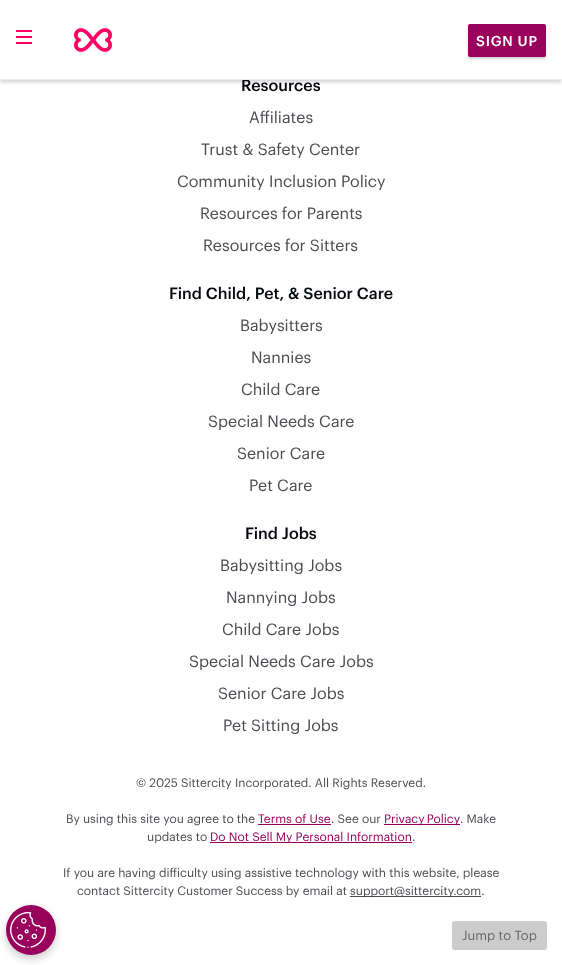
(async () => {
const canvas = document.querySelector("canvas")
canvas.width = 562
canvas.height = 965
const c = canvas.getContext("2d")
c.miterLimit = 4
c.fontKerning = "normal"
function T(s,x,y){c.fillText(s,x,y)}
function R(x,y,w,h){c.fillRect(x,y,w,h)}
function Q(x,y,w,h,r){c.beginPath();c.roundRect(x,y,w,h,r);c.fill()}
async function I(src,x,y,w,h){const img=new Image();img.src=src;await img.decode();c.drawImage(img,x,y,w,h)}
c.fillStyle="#fff"
R(0,0,562,965)
c.font="500 16px Graphik"
c.fillStyle="#05070f"
T("Resources",241,91)
c.fillStyle="#e9eaea"
R(0,79,562,1)
c.save()
c.beginPath()
c.rect(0,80,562,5)
c.clip()
c.fillStyle="#05070f33"
c.filter="blur(2px)"
c.beginPath()
c.rect(0,2,562,80)
c.fill()
c.filter="none"
c.restore()
await I("1.png",16,30,16,14)
await I("2.png",74,28,38,24)
c.fillStyle="#05070f30"
c.filter="blur(1px)"
c.beginPath()
c.roundRect(468,26,78,33,2)
c.fill()
c.filter="none"
c.fillStyle="#99005c"
Q(468,24,78,33,2)
c.letterSpacing="0.75px"
c.font="500 14px Graphik"
c.fillStyle="#fff"
T("SIGN UP",476,46)
c.letterSpacing="0px"
c.font="16px Graphik"
c.fillStyle="#4b4c52"
T("Affiliates",249,123)
T("Trust & Safety Center",201,155)
T("Community Inclusion Policy",177,187)
T("Resources for Parents",200,219)
T("Resources for Sitters",203,251)
c.font="500 16px Graphik"
c.fillStyle="#05070f"
T("Find Child, Pet, & Senior Care",169,299)
c.font="16px Graphik"
c.fillStyle="#4b4c52"
T("Babysitters",240,331)
T("Nannies",251,363)
T("Child Care",241,395)
T("Special Needs Care",208,427)
T("Senior Care",237,459)
T("Pet Care",249,491)
c.font="500 16px Graphik"
c.fillStyle="#05070f"
T("Find Jobs",245,539)
c.font="16px Graphik"
c.fillStyle="#4b4c52"
T("Babysitting Jobs",220,571)
T("Nannying Jobs",226,603)
T("Child Care Jobs",222,635)
T("Special Needs Care Jobs",189,667)
T("Senior Care Jobs",218,699)
T("Pet Sitting Jobs",223,731)
c.font="12px Graphik"
T("© 2025 Sittercity Incorporated. All Rights Reserved.",136,787)
T("By using this site you agree to the",66,823)
c.fillStyle="#99005c"
T("Terms of Use",258,823)
R(258,824,73,1)
c.fillStyle="#4b4c52"
T(". See our",331,823)
c.fillStyle="#99005c"
R(384,824,76,1)
c.wordSpacing="-1px"
T("Privacy Policy",384,823)
c.wordSpacing="0px"
c.fillStyle="#4b4c52"
T(". Make",460,823)
T("updates to",147,841)
c.fillStyle="#99005c"
R(210,842,202,1)
T("Do Not Sell My Personal Information",210,841)
c.fillStyle="#4b4c52"
T(".",412,841)
T("If you are having difficulty using assistive technology with this website, please",63,877)
T("contact Sittercity Customer Success by email at",77,895)
R(350,896,131,1)
T("support@sittercity.com.",350,895)
c.fillStyle="#00000033"
c.filter="blur(4px)"
c.beginPath()
c.roundRect(6,909,50,50,25)
c.fill()
c.filter="none"
c.fillStyle="#99005c"
c.beginPath()
c.arc(31,930,25,0,7)
c.fill()
await I("3.png",10,912,36,36)
c.fillStyle="#ccc"
Q(452,921,95,29,3)
c.font="13px Graphik"
c.fillStyle="#676767"
T("Jump to Top",462,940)
})()
